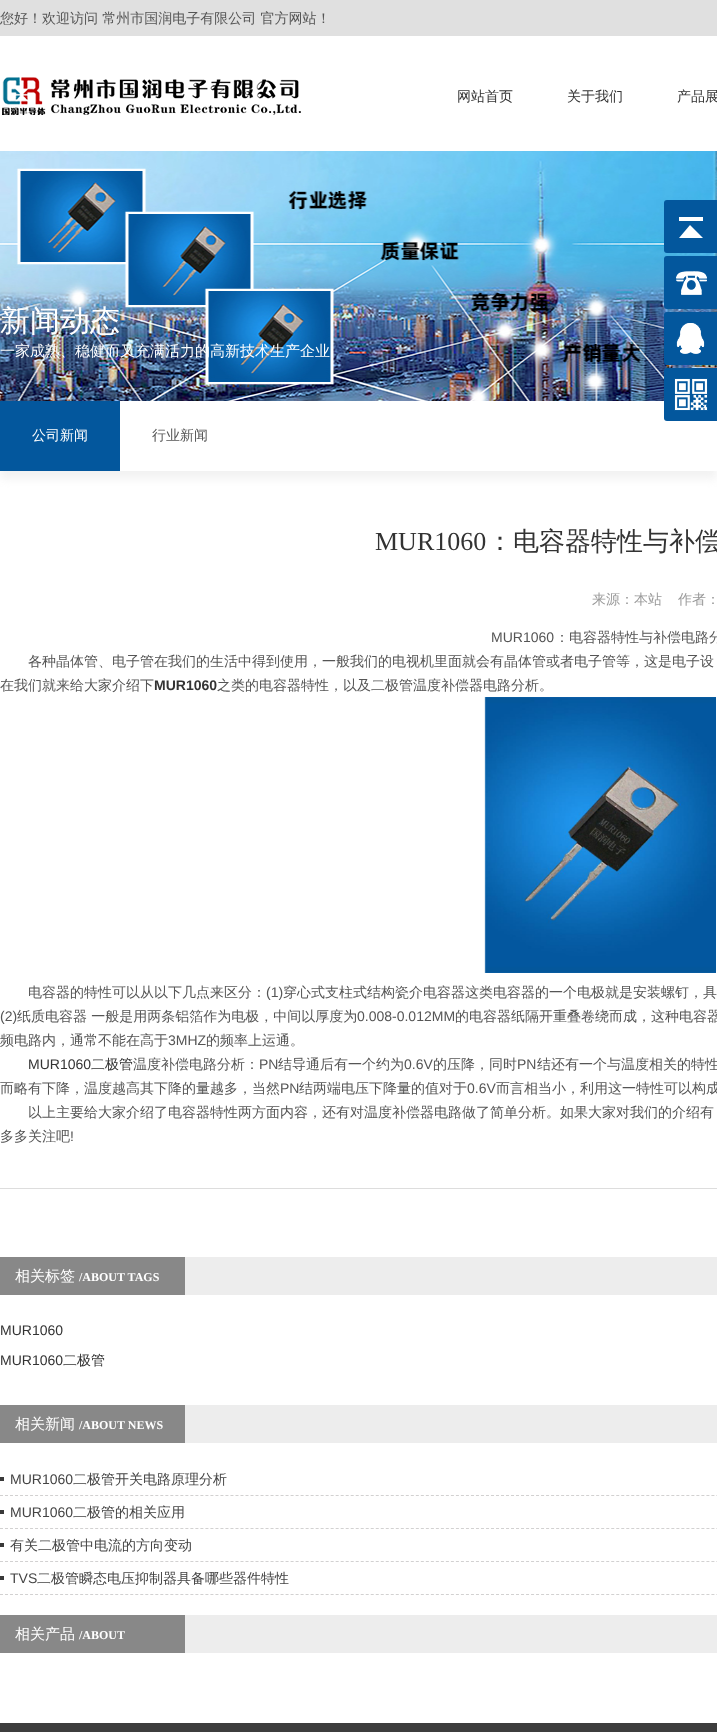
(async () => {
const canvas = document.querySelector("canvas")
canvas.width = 717
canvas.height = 1732
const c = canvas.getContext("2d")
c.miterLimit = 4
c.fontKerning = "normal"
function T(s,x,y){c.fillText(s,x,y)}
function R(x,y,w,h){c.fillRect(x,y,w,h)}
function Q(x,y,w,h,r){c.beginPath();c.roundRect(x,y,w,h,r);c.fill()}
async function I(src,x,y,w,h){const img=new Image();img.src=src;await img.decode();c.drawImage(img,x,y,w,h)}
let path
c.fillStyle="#fff"
R(0,0,717,1732)
c.fillStyle="#e0e0e0"
R(0,0,717,36)
c.font="500 14px WenQuanYi Zen Hei"
c.fillStyle="#555"
T("您好！欢迎访问 常州市国润电子有限公司 官方网站！",0,23)
await I("1.png",2,77,299,38)
c.fillStyle="#333"
T("网站首页",457,101)
T("关于我们",567,101)
T("产品展",677,101)
await I("2.png",0,151,717,250)
c.font="500 30px WenQuanYi Zen Hei"
c.fillStyle="#fff"
T("新闻动态",0,331)
c.font="500 15px WenQuanYi Zen Hei"
T("一家成熟、稳健而又充满活力的高新技术生产企业",0,356)
c.fillStyle="#03579d"
Q(664,200,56,53,3)
await I("3.png",679,217,24,21)
Q(664,256,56,53,3)
await I("4.png",676,271,31,24)
Q(664,312,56,53,3)
await I("5.png",676,323,29,31)
c.save()
path = new Path2D("M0 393h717v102h-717zm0 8h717v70h-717z")
c.clip(path,"evenodd")
c.fillStyle="#f2f2f2"
c.filter="blur(5px)"
c.beginPath()
c.rect(0,409,717,70)
c.fill()
c.filter="none"
c.restore()
Q(664,368,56,53,3)
await I("6.png",674,378,34,33)
R(0,401,120,70)
c.font="500 14px WenQuanYi Zen Hei"
c.fillStyle="#fff"
T("公司新闻",32,440)
c.fillStyle="#555"
T("行业新闻",152,440)
c.font="26px Liberation Serif"
c.fillStyle="#333"
T("MUR1060",375,550)
c.font="500 26px WenQuanYi Zen Hei"
T("：电容器特性与补偿",487,550)
c.font="500 14px WenQuanYi Zen Hei"
c.fillStyle="#999"
T("来源：本站",592,604)
T("作者：",678,604)
c.font="14px Liberation Sans"
c.fillStyle="#555"
T("MUR1060",491,642)
c.font="500 14px WenQuanYi Zen Hei"
T("：电容器特性与补偿电路分",555,642)
T("各种晶体管、电子管在我们的生活中得到使用，一般我们的电视机里面就会有晶体管或者电子管等，这是电子设",28,666)
T("在我们就来给大家介绍下",0,690)
c.font="bold 14px Liberation Sans"
c.fillStyle="#333"
T("MUR1060",154,690)
c.font="500 14px WenQuanYi Zen Hei"
c.fillStyle="#555"
T("之类的电容器特性，以及二极管温度补偿器电路分析。",217,690)
await I("7.png",484,697,232,276)
T("电容器的特性可以从以下几点来区分：",28,997)
c.font="14px Liberation Sans"
T("(1)",266,997)
c.font="500 14px WenQuanYi Zen Hei"
T("穿心式支柱式结构瓷介电容器这类电容器的一个电极就是安装螺钉，具",283,997)
c.font="14px Liberation Sans"
T("(2)",0,1021)
c.font="500 14px WenQuanYi Zen Hei"
T("纸质电容器 一般是用两条铝箔作为电极，中间以厚度为",17,1021)
c.font="14px Liberation Sans"
T("0.008-0.012MM",357,1021)
c.font="500 14px WenQuanYi Zen Hei"
T("的电容器纸隔开重叠卷绕而成，这种电容器",455,1021)
T("频电路内，通常不能在高于",0,1045)
c.font="14px Liberation Sans"
T("3MHZ",168,1045)
c.font="500 14px WenQuanYi Zen Hei"
T("的频率上运通。",206,1045)
c.font="14px Liberation Sans"
c.fillStyle="#333"
T("MUR1060",28,1069)
c.font="500 14px WenQuanYi Zen Hei"
T("二极管",91,1069)
c.fillStyle="#555"
T("温度补偿电路分析：",133,1069)
c.font="14px Liberation Sans"
T("PN",259,1069)
c.font="500 14px WenQuanYi Zen Hei"
T("结导通后有一个约为",278,1069)
c.font="14px Liberation Sans"
T("0.6V",404,1069)
c.font="500 14px WenQuanYi Zen Hei"
T("的压降，同时",433,1069)
c.font="14px Liberation Sans"
T("PN",517,1069)
c.font="500 14px WenQuanYi Zen Hei"
T("结还有一个与温度相关的特性",537,1069)
T("而略有下降，温度越高其下降的量越多，当然",0,1093)
c.font="14px Liberation Sans"
T("PN",280,1093)
c.font="500 14px WenQuanYi Zen Hei"
T("结两端电压下降量的值对于",299,1093)
c.font="14px Liberation Sans"
T("0.6V",467,1093)
c.font="500 14px WenQuanYi Zen Hei"
T("而言相当小，利用这一特性可以构成",496,1093)
T("以上主要给大家介绍了电容器特性两方面内容，还有对温度补偿器电路做了简单分析。如果大家对我们的介绍有",28,1117)
T("多多关注吧",0,1141)
c.font="14px Liberation Sans"
T("!",70,1141)
c.fillStyle="#ddd"
R(0,1188,717,1)
c.fillStyle="#ededed"
R(185,1257,532,38)
c.fillStyle="#888"
R(0,1257,185,38)
c.font="500 15px WenQuanYi Zen Hei"
c.fillStyle="#fff"
T("相关标签",15,1281)
c.font="bold 12px Liberation Serif"
T("/ABOUT TAGS",79,1281)
c.font="14px Liberation Sans"
c.fillStyle="#333"
T("MUR1060",0,1335)
T("MUR1060",0,1365)
c.font="500 14px WenQuanYi Zen Hei"
T("二极管",63,1365)
c.fillStyle="#ededed"
R(185,1405,532,38)
c.fillStyle="#888"
R(0,1405,185,38)
c.font="500 15px WenQuanYi Zen Hei"
c.fillStyle="#fff"
T("相关新闻",15,1429)
c.font="bold 12px Liberation Serif"
T("/ABOUT NEWS",79,1429)
c.fillStyle="#393939"
R(0,1477,4,4)
path = new Path2D("M0 1495.5h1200")
c.strokeStyle="#d2d1d1"
c.setLineDash([3,2.01])
c.stroke(path)
c.font="14px Liberation Sans"
c.fillStyle="#444"
T("MUR1060",10,1484)
c.font="500 14px WenQuanYi Zen Hei"
T("二极管开关电路原理分析",73,1484)
c.fillStyle="#393939"
R(0,1510,4,4)
path = new Path2D("M0 1528.5h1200")
c.stroke(path)
c.font="14px Liberation Sans"
c.fillStyle="#444"
T("MUR1060",10,1517)
c.font="500 14px WenQuanYi Zen Hei"
T("二极管的相关应用",73,1517)
c.fillStyle="#393939"
R(0,1543,4,4)
path = new Path2D("M0 1561.5h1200")
c.stroke(path)
c.fillStyle="#444"
T("有关二极管中电流的方向变动",10,1550)
c.fillStyle="#393939"
R(0,1576,4,4)
path = new Path2D("M0 1594.5h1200")
c.stroke(path)
c.font="14px Liberation Sans"
c.fillStyle="#444"
T("TVS",10,1583)
c.font="500 14px WenQuanYi Zen Hei"
T("二极管瞬态电压抑制器具备哪些器件特性",37,1583)
c.fillStyle="#ededed"
R(185,1615,532,38)
c.fillStyle="#888"
R(0,1615,185,38)
c.font="500 15px WenQuanYi Zen Hei"
c.fillStyle="#fff"
T("相关产品",15,1639)
c.font="bold 12px Liberation Serif"
T("/ABOUT",79,1639)
c.fillStyle="#3d3d3d"
R(0,1723,717,9)
})()
